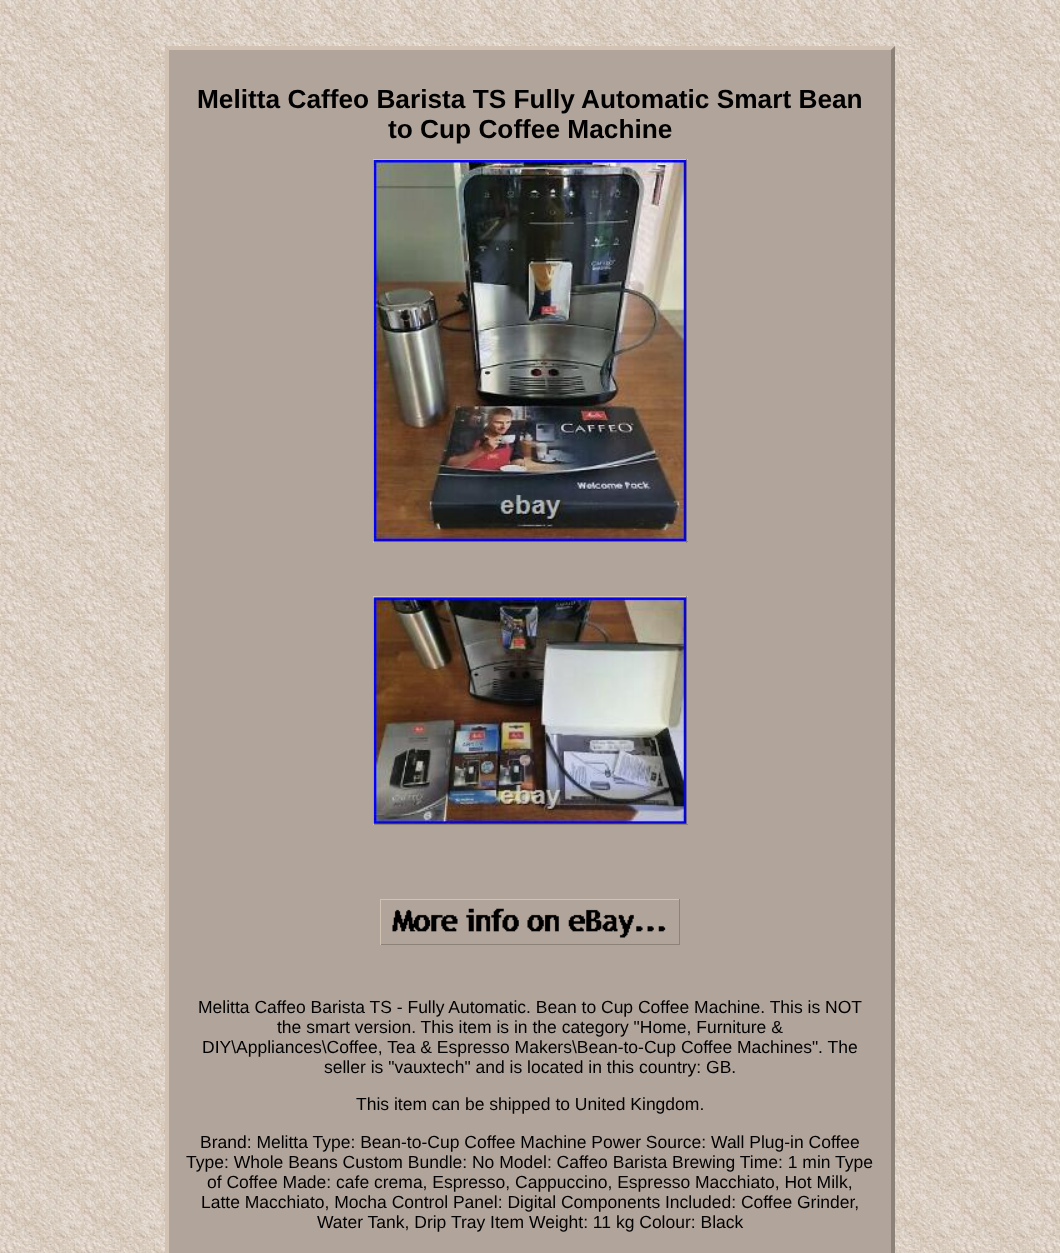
(async () => {
const canvas = document.querySelector("canvas")
canvas.width = 1060
canvas.height = 1253
const c = canvas.getContext("2d")
c.miterLimit = 4
c.fontKerning = "normal"
function T(s,x,y){c.fillText(s,x,y)}
function R(x,y,w,h){c.fillRect(x,y,w,h)}
async function I(src,x,y,w,h){const img=new Image();img.src=src;await img.decode();c.drawImage(img,x,y,w,h)}
let path
c.fillStyle="#fff"
R(0,0,1060,1253)
await I("1.png",0,0,1060,1253)
c.fillStyle="#b1a49b"
R(165,46,730,1207)
c.fillStyle="#d3c3b4"
path = new Path2D("M165 46h730l-4 4h-722z")
c.fill(path)
c.fillStyle="#8d8278"
path = new Path2D("M895 46v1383l-4-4v-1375z")
c.fill(path)
c.fillStyle="#d3c3b4"
path = new Path2D("M165 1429v-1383l4 4v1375z")
c.fill(path)
c.font="bold 26.25px Liberation Sans"
c.fillStyle="#000"
T("Melitta Caffeo Barista TS Fully Automatic Smart Bean",197,108)
T("to Cup Coffee Machine",388,138)
c.fillStyle="#d3c3b4"
R(373,159,315,1)
c.fillStyle="#8d8278"
R(686,159,1,384)
R(373,541,315,1)
c.fillStyle="#d3c3b4"
R(373,159,1,384)
await I("2.png",373,160,314,382)
R(373,596,315,1)
c.fillStyle="#8d8278"
R(686,596,1,229)
R(373,824,315,1)
c.fillStyle="#d3c3b4"
R(373,596,1,229)
await I("3.png",373,597,314,227)
R(380,899,300,1)
c.fillStyle="#8d8278"
R(679,899,1,46)
R(380,944,300,1)
c.fillStyle="#d3c3b4"
R(380,899,1,46)
await I("4.png",392,908,274,30)
c.font="17.5px Liberation Sans"
c.fillStyle="#000"
T("Melitta Caffeo Barista TS - Fully Automatic. Bean to Cup Coffee Machine. This is NOT",198,1013)
T("the smart version. This item is in the category \"Home, Furniture &",277,1033)
T("DIY\\Appliances\\Coffee, Tea & Espresso Makers\\Bean-to-Cup Coffee Machines\". The",202,1053)
T("seller is \"vauxtech\" and is located in this country: GB.",324,1073)
T("This item can be shipped to United Kingdom.",356,1110)
T("Brand: Melitta Type: Bean-to-Cup Coffee Machine Power Source: Wall Plug-in Coffee",200,1148)
T("Type: Whole Beans Custom Bundle: No Model: Caffeo Barista Brewing Time: 1 min Type",186,1168)
T("of Coffee Made: cafe crema, Espresso, Cappuccino, Espresso Macchiato, Hot Milk,",207,1188)
T("Latte Macchiato, Mocha Control Panel: Digital Components Included: Coffee Grinder,",201,1208)
T("Water Tank, Drip Tray Item Weight: 11 kg Colour: Black",317,1228)
})()
